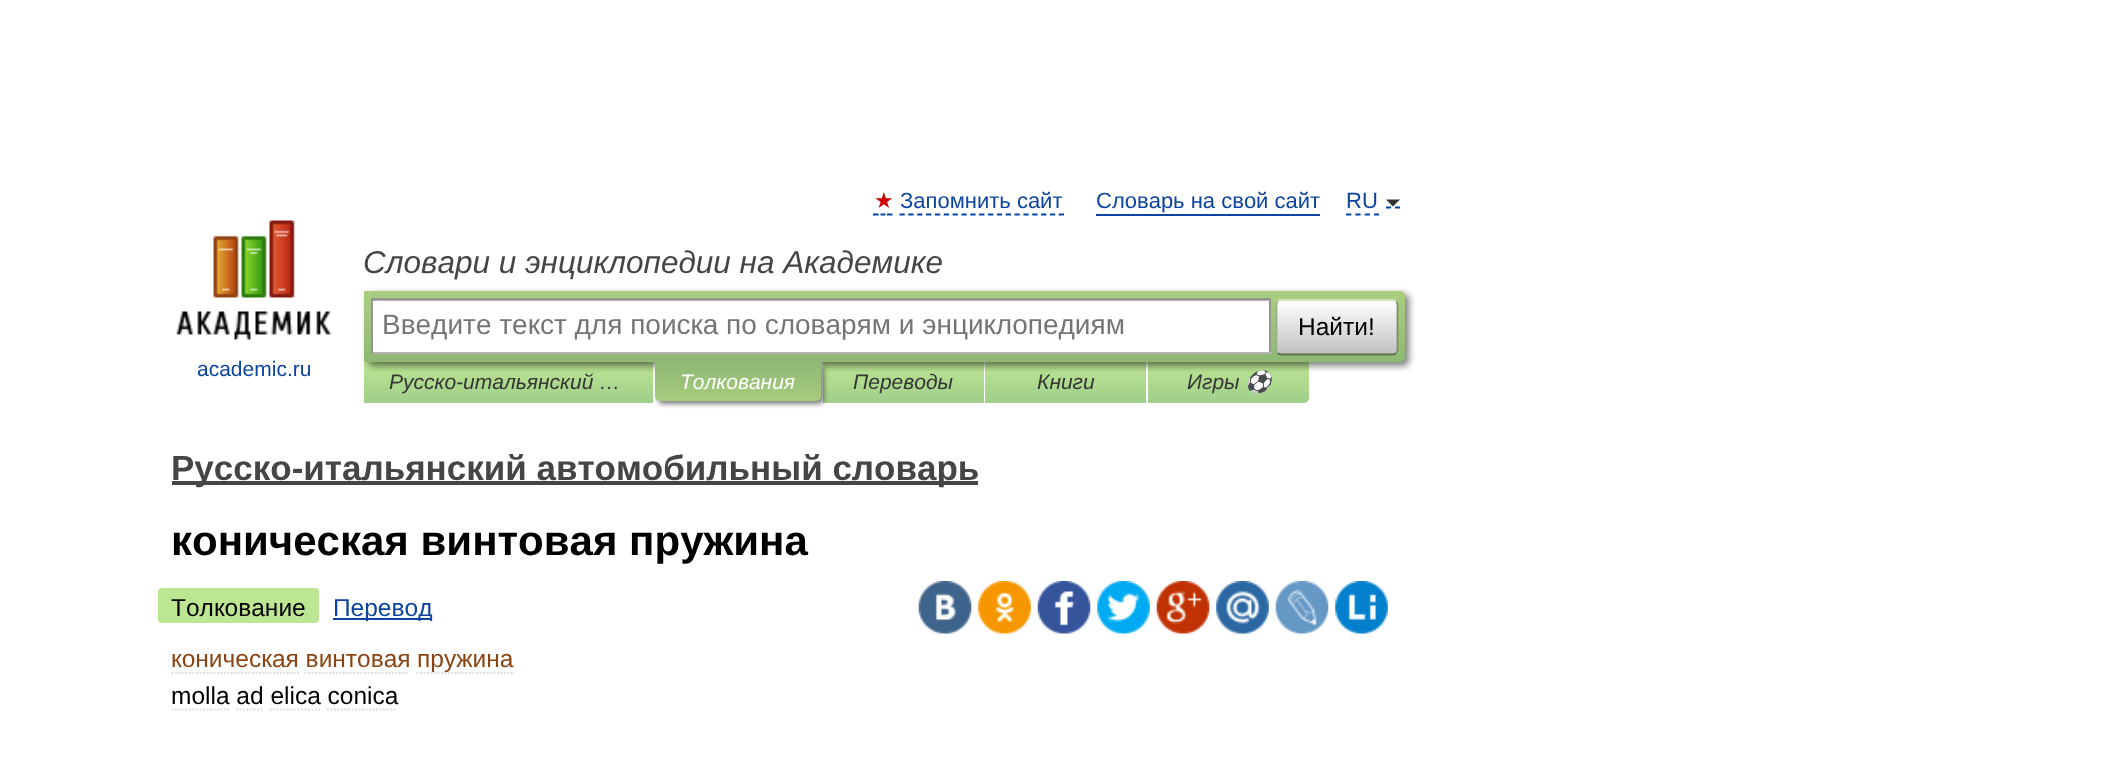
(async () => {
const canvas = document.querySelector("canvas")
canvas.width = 2125
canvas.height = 769
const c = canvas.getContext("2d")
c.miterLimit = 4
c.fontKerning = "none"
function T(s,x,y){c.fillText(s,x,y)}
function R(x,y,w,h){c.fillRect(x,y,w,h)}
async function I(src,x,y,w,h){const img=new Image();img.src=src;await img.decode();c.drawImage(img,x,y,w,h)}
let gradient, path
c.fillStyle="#fff"
R(0,0,2125,769)
c.font="22px DejaVu Sans"
c.fillStyle="#c00"
T("★",874,208)
path = new Path2D("M873 214.5h5.5m2 0h5m1.5 0h5.5")
c.strokeStyle="#04a"
c.lineWidth=1.8
c.stroke(path)
c.font="22px Liberation Sans"
c.fillStyle="#0d44a0"
T("Запомнить сайт",900,208)
path = new Path2D("M899.5 214.5h164.5")
c.setLineDash([5.25,3.6])
c.stroke(path)
T("Словарь на свой сайт",1096,208)
R(1096,214,224,2)
path = new Path2D("M1346 214.5h33")
c.setLineDash([5.25,4.08])
c.stroke(path)
path = new Path2D("M1386 207.5h5m4 0h5")
c.setLineDash([])
c.stroke(path)
T("RU",1346,208)
c.fillStyle="#333"
path = new Path2D("M1386 199.5h14l-7 7z")
c.fill(path)
c.font="italic 31.5px Liberation Sans"
c.fillStyle="#454545"
T("Словари и энциклопедии на Академике",363,273)
gradient = c.createLinearGradient(508,362,508,403)
gradient.addColorStop(0,"#bde693")
gradient.addColorStop(1,"#a0ce8a")
c.fillStyle = gradient
R(364,362,289,41)
gradient = c.createLinearGradient(903,362,903,403)
gradient.addColorStop(0,"#bde693")
gradient.addColorStop(1,"#a0ce8a")
c.fillStyle = gradient
R(823,362,161,41)
gradient = c.createLinearGradient(1066,362,1066,403)
gradient.addColorStop(0,"#bde693")
gradient.addColorStop(1,"#a0ce8a")
c.fillStyle = gradient
R(985,362,161,41)
gradient = c.createLinearGradient(1229,362,1229,403)
gradient.addColorStop(0,"#bde693")
gradient.addColorStop(1,"#a0ce8a")
c.fillStyle = gradient
c.beginPath()
c.roundRect(1148,362,161,41,[0,0,5,0])
c.fill()
c.fillStyle="#00000080"
c.filter="blur(3.5px)"
c.beginPath()
c.roundRect(368,294,1041,72,5)
c.fill()
c.filter="none"
gradient = c.createLinearGradient(885,290,885,362)
gradient.addColorStop(0,"#abcf7e")
gradient.addColorStop(1,"#8eb874")
c.fillStyle = gradient
c.beginPath()
c.roundRect(364,291,1041,71,[0,5,5,0])
c.fill()
c.fillStyle="#fff"
R(373,301,896,51)
c.fillStyle="#b3b3b3"
R(373,300,896,1)
c.fillStyle="#949494"
R(371,298,900,2)
R(1269,298,2,56)
c.fillStyle="#b4b4b4"
R(371,352,900,2)
c.fillStyle="#949494"
R(371,298,2,56)
c.font="28px Liberation Sans"
c.fillStyle="#757575"
T("Введите текст для поиска по словарям и энциклопедиям",382,334)
c.save()
c.beginPath()
c.roundRect(1276,299,122,56,5)
c.clip()
gradient = c.createLinearGradient(1337,249,1337,301)
gradient.addColorStop(0,"#fff")
gradient.addColorStop(1,"#c1c1c1")
c.fillStyle = gradient
R(1276,299,122,2)
gradient = c.createLinearGradient(1337,301,1337,354)
gradient.addColorStop(0,"#fff")
gradient.addColorStop(1,"#c1c1c1")
c.fillStyle = gradient
R(1276,301,122,53)
c.restore()
path = new Path2D("M1278 301.5c.5-1 2-1.5 3-1.5h112c1 0 2.5 .5 3 1.5")
c.strokeStyle="#d1e4bc"
c.stroke(path)
path = new Path2D("M1396 301.5c1 .5 1.5 2 1.5 3v45.5c0 1-.5 2.5-1.5 3")
c.strokeStyle="#7a8e69"
c.stroke(path)
path = new Path2D("M1396 353c-.5 1-2 1.5-3 1.5h-112c-1 0-2.5-.5-3-1.5")
c.strokeStyle="#5d7250"
c.stroke(path)
path = new Path2D("M1278 353c-1-.5-1.5-2-1.5-3v-45.5c0-1 .5-2.5 1.5-3")
c.strokeStyle="#9aae89"
c.stroke(path)
c.font="24.5px Liberation Sans"
c.fillStyle="#000"
T("Найти!",1298,335)
await I("1.png",176,220,155,120)
c.font="21px Liberation Sans"
c.fillStyle="#0d44a0"
T("academic.ru",197,376)
c.font="italic 21px Liberation Sans"
c.fillStyle="#353535"
T("Русско-итальянский …",389,389)
c.fillStyle="#00000080"
c.filter="blur(2.5px)"
c.beginPath()
c.roundRect(658,366,166,38,5)
c.fill()
c.filter="none"
gradient = c.createLinearGradient(738,362,738,401)
gradient.addColorStop(0,"#8fb875")
gradient.addColorStop(1,"#a7cc7d")
c.fillStyle = gradient
c.beginPath()
c.roundRect(655,362,166,39,[0,0,5,5])
c.fill()
c.fillStyle="#fff"
T("Толкования",680,389)
c.fillStyle="#353535"
T("Переводы",853,389)
T("Книги",1037,389)
T("Игры",1187,389)
c.font="italic 21px Noto Color Emoji"
T("⚽",1245,389)
c.fillStyle="#454545"
R(172,481,806,4)
c.font="bold 35px Liberation Sans"
T("Русско-итальянский автомобильный словарь",171,480)
c.font="bold 42px Liberation Sans"
c.fillStyle="#000"
T("коническая винтовая пружина",171,555)
c.fillStyle="#bde693"
c.beginPath()
c.roundRect(158,588,14,35,[4,0,0,4])
c.fill()
c.beginPath()
c.roundRect(172,588,147,35,[0,4,4,0])
c.fill()
c.font="24.5px Liberation Sans"
c.fillStyle="#000"
T("Толкование",171,616)
c.fillStyle="#0d44a0"
R(333,618,99,2)
T("Перевод",333,616)
await I("2.png",918,581,54,53)
await I("3.png",978,581,53,53)
await I("4.png",1037,581,54,53)
await I("5.png",1097,581,53,53)
await I("6.png",1156,581,54,53)
await I("7.png",1216,581,53,53)
await I("8.png",1275,581,54,53)
await I("9.png",1335,581,53,53)
c.fillStyle="#8b4513"
T("коническая винтовая",171,667)
path = new Path2D("M171.5 673h127.5")
c.strokeStyle="#d9d9d9"
c.setLineDash([1.75,1.75])
c.stroke(path)
path = new Path2D("M416.5 673h96.5")
c.stroke(path)
T("пружина",417,667)
path = new Path2D("M304.5 673h105")
c.stroke(path)
c.fillStyle="#000"
T("molla ad elica conica",171,704)
path = new Path2D("M171.5 709.5h57.5")
c.stroke(path)
path = new Path2D("M236 709.5h26.5")
c.stroke(path)
path = new Path2D("M269.5 709.5h50.5")
c.stroke(path)
path = new Path2D("M327 709.5h70")
c.stroke(path)
})()
